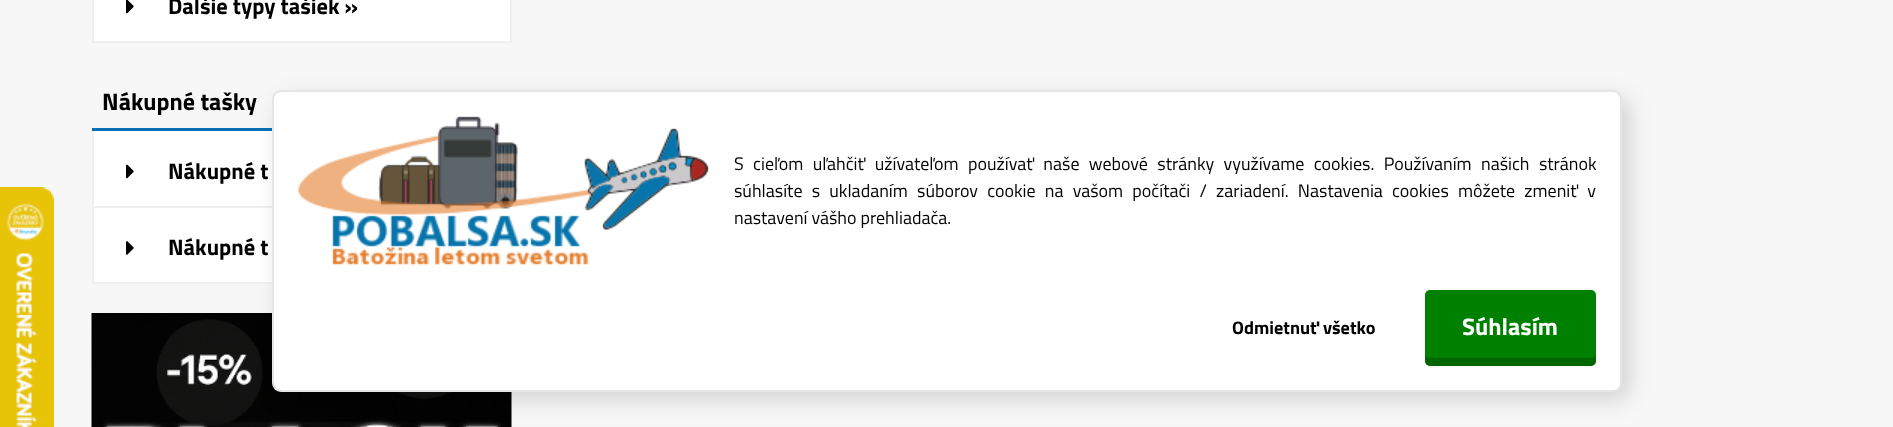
(async () => {
const canvas = document.querySelector("canvas")
canvas.width = 1893
canvas.height = 427
const c = canvas.getContext("2d")
c.miterLimit = 4
c.fontKerning = "normal"
function T(s,x,y){c.fillText(s,x,y)}
function R(x,y,w,h){c.fillRect(x,y,w,h)}
function Q(x,y,w,h,r){c.beginPath();c.roundRect(x,y,w,h,r);c.fill()}
async function I(src,x,y,w,h){const img=new Image();img.src=src;await img.decode();c.drawImage(img,x,y,w,h)}
let path
c.fillStyle="#f7f7f7"
R(0,0,1893,427)
await I("1.png",0,187,54,240)
c.fillStyle="#fff"
R(94,0,416,41)
c.fillStyle="#f0f0f0"
R(510,0,2,42)
R(92,41,420,2)
R(92,0,2,42)
await I("2.png",126,0,8,14)
c.font="bold 22.5px Titillium Web"
c.fillStyle="#000"
T("Ďalšie typy tašiek »",168,14)
c.fillStyle="#0170b7"
R(92,128,180,3)
c.font="bold 24px Titillium Web"
c.fillStyle="#000"
T("Nákupné tašky",102,110)
c.fillStyle="#fff"
R(94,131,178,75)
c.fillStyle="#f0f0f0"
R(92,206,180,2)
R(92,131,2,76)
await I("3.png",126,164,8,15)
c.font="bold 22.5px Titillium Web"
c.fillStyle="#000"
T("Nákupné t",168,179)
c.fillStyle="#fff"
R(94,208,178,74)
c.fillStyle="#f0f0f0"
R(92,282,180,2)
R(92,207,2,77)
await I("4.png",126,241,8,14)
c.fillStyle="#000"
T("Nákupné t",168,255)
await I("5.png",91,313,421,114)
c.fillStyle="#00000026"
c.filter="blur(11px)"
c.beginPath()
c.roundRect(279,98,1350,301,9)
c.fill()
c.filter="none"
c.fillStyle="#fff"
Q(272,90,1350,302,9)
c.beginPath()
c.roundRect(273,91,1348,300,8)
c.strokeStyle="#0000001a"
c.lineWidth=2
c.stroke()
await I("6.png",298,116,411,150)
c.wordSpacing="5.4px"
c.font="18px Titillium Web"
c.fillStyle="#000"
T("S cieľom uľahčiť užívateľom používať naše webové stránky využívame cookies. Používaním našich stránok",734,170)
c.wordSpacing="5.25px"
T("súhlasíte s ukladaním súborov cookie na vašom počítači / zariadení. Nastavenia cookies môžete zmeniť v",734,197)
c.wordSpacing="0px"
T("nastavení vášho prehliadača.",734,224)
c.font="bold 18.25px Titillium Web"
T("Odmietnuť všetko",1232,334)
c.fillStyle="#008000"
Q(1425,290,171,76,5)
c.fillStyle="#00000033"
path = new Path2D("M1425 354v7c0 3 2 5 5 5h161c3 0 5-2 5-5v-7c0 2-2 4-4 4h-162c-3 0-5-2-5-4z")
c.fill(path)
c.font="bold 24px Titillium Web"
c.fillStyle="#fff"
T("Súhlasím",1462,335)
})()
